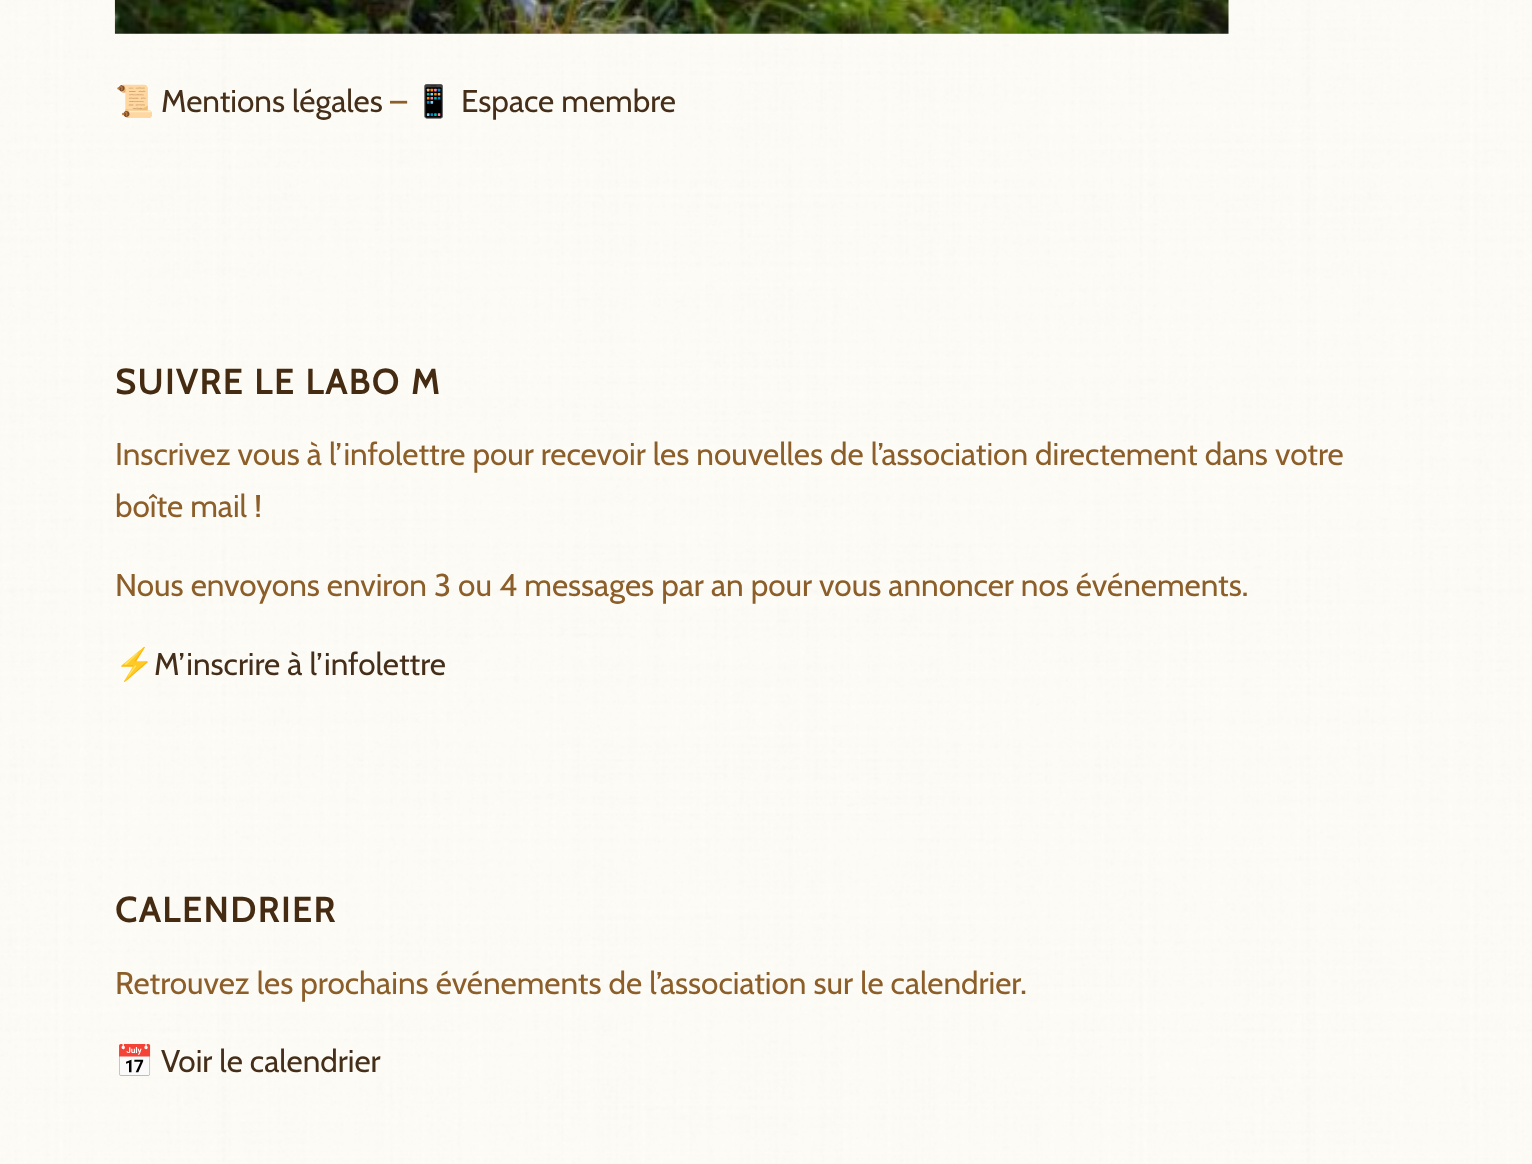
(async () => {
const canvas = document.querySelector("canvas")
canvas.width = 1532
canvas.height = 1164
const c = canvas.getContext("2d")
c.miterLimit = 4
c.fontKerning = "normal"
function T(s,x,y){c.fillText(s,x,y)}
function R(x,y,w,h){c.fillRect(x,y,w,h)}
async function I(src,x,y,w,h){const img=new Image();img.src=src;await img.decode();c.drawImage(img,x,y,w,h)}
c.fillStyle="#fffdf7"
R(0,0,1532,1164)
await I("1.png",0,0,1532,1164)
await I("2.png",114,0,1115,34)
c.save()
c.beginPath()
c.rect(115,0,1303,155)
c.clip()
c.font="31.5px Noto Color Emoji"
c.fillStyle="#452f1a"
T("📜",115,112)
c.restore()
c.font="31.5px Cabin"
c.fillStyle="#452f1a"
T("Mentions légales",161,112)
c.fillStyle="#8c5e29"
T("–",390,112)
c.font="31.5px Noto Color Emoji"
T("📱",414,112)
c.font="31.5px Cabin"
c.fillStyle="#452f1a"
T("Espace membre",461,112)
c.letterSpacing="2.25px"
c.font="bold 34.75px Cabin"
c.fillStyle="#452b12"
T("SUIVRE LE LABO M",115,394)
c.letterSpacing="0px"
c.font="31.5px Cabin"
c.fillStyle="#8c5e29"
T("Inscrivez vous à l’infolettre pour recevoir les nouvelles de l’association directement dans votre",115,465)
T("boîte mail !",115,517)
T("Nous envoyons environ 3 ou 4 messages par an pour vous annoncer nos événements.",115,596)
c.save()
c.beginPath()
c.rect(115,335,1303,462)
c.clip()
c.font="31.5px Noto Color Emoji"
T("⚡",115,675)
c.restore()
c.fillStyle="#452f1a"
T("M’inscrire à l’infolettre",154,675)
c.letterSpacing="2.25px"
c.font="bold 34.75px Cabin"
c.fillStyle="#452b12"
T("CALENDRIER",115,922)
c.letterSpacing="0px"
c.font="31.5px Cabin"
c.fillStyle="#8c5e29"
T("Retrouvez les prochains événements de l’association sur le calendrier.",115,994)
c.save()
c.beginPath()
c.rect(115,864,1303,252)
c.clip()
c.font="31.5px Noto Color Emoji"
T("📅",115,1072)
c.restore()
c.fillStyle="#452f1a"
T("Voir le calendrier",161,1072)
})()
